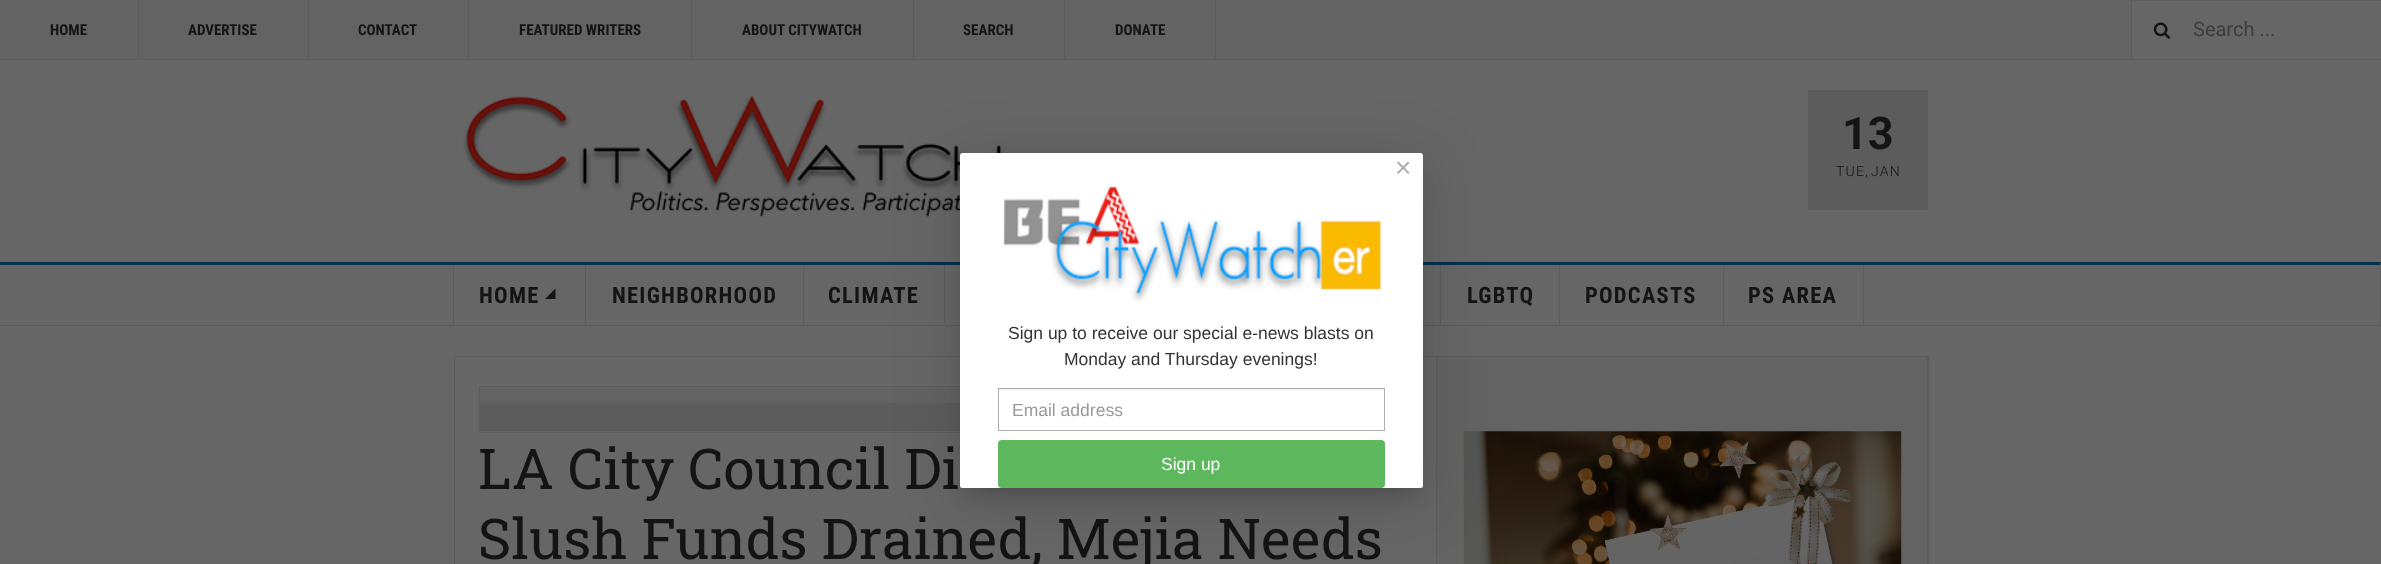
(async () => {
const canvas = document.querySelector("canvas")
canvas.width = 2381
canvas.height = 564
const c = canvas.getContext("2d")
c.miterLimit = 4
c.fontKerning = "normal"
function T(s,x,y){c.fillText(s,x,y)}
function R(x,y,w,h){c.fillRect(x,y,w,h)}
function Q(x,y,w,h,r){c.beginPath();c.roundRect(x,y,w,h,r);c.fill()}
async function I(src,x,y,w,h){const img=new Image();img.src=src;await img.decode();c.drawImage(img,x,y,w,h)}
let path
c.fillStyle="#666"
R(0,0,2381,564)
c.fillStyle="#636363"
R(0,0,2131,59)
c.fillStyle="#5c5c5c"
R(0,59,2381,1)
R(138,0,1,60)
c.font="bold 15px Roboto Condensed"
c.fillStyle="#141414"
T("HOME",50,35)
c.fillStyle="#5c5c5c"
R(308,0,1,60)
c.fillStyle="#141414"
T("ADVERTISE",188,35)
c.fillStyle="#5c5c5c"
R(468,0,1,60)
c.fillStyle="#141414"
T("CONTACT",358,35)
c.fillStyle="#5c5c5c"
R(691,0,1,60)
c.fillStyle="#141414"
T("FEATURED WRITERS",519,35)
c.fillStyle="#5c5c5c"
R(913,0,1,60)
c.fillStyle="#141414"
T("ABOUT CITYWATCH",742,35)
c.fillStyle="#5c5c5c"
R(1064,0,1,60)
c.fillStyle="#141414"
T("SEARCH",963,35)
c.fillStyle="#5c5c5c"
R(1215,0,1,60)
c.fillStyle="#141414"
T("DONATE",1115,35)
await I("1.png",2153,22,17,17)
c.fillStyle="#5e5e5e"
R(2133,0,248,1)
c.fillStyle="#5c5c5c"
R(2131,0,1,59)
c.font="20px Roboto"
c.fillStyle="#3d3d3d"
T("Search ...",2193,36)
await I("2.png",463,96,542,121)
c.fillStyle="#5c5c5c"
R(1808,90,120,120)
c.font="bold 45px Roboto"
c.fillStyle="#141414"
T("13",1842,149)
c.letterSpacing="1.25px"
c.font="300 14px Roboto"
T("TUE",1836,176)
c.letterSpacing="0px"
T(",",1865,176)
c.letterSpacing="1.25px"
T("JAN",1871,176)
c.fillStyle="#00304b"
path = new Path2D("M0 262h2381l-1 3h-2380z")
c.fill(path)
c.fillStyle="#5c5c5c"
path = new Path2D("M2381 262v64l-1-1v-60z")
c.fill(path)
R(0,325,2381,1)
R(453,265,1,60)
R(585,265,1,60)
c.font="bold 22.5px Roboto Condensed"
c.fillStyle="#141414"
T("HOME",479,303)
path = new Path2D("M545 299l10.5-10.5v10.5z")
c.fill(path)
c.fillStyle="#5c5c5c"
R(803,265,1,60)
c.fillStyle="#141414"
T("NEIGHBORHOOD",612,303)
c.fillStyle="#5c5c5c"
R(944,265,1,60)
c.fillStyle="#141414"
T("CLIMATE",828,303)
c.fillStyle="#5c5c5c"
R(1440,265,1,60)
R(1559,265,1,60)
c.fillStyle="#141414"
T("LGBTQ",1467,303)
c.fillStyle="#5c5c5c"
R(1723,265,1,60)
c.fillStyle="#141414"
T("PODCASTS",1585,303)
c.fillStyle="#5c5c5c"
R(1863,265,1,60)
c.fillStyle="#141414"
T("PS AREA",1748,303)
c.strokeStyle="#5c5c5c"
c.strokeRect(454.5,356.5,1474,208)
c.strokeRect(479.5,386.5,931,46)
c.fillStyle="#636363"
R(480,388,480,15)
c.fillStyle="#5c5c5c"
R(480,403,480,28)
c.letterSpacing="0px"
c.font="56.25px Roboto Slab"
c.fillStyle="#141414"
T("LA City Council Di",478,489)
T("Slush Funds Drained, Mejia Needs",478,559)
c.fillStyle="#636363"
c.beginPath()
c.rect(1436.5,356.5,491,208)
c.fill()
c.stroke()
await I("3.png",1463,431,439,133)
c.fillStyle="#0000001a"
c.filter="blur(29px)"
c.beginPath()
c.roundRect(950,154,483,355,13)
c.fill()
c.filter="none"
c.fillStyle="#00000033"
c.filter="blur(9.5px)"
c.beginPath()
c.rect(969,175,445,318)
c.fill()
c.filter="none"
c.fillStyle="#fff"
Q(960,153,463,335,2.5)
c.font="28px Liberation Sans"
c.fillStyle="#aeaeae"
T("×",1395,177)
await I("4.png",1003,186,379,116)
c.font="17.5px Liberation Sans"
c.fillStyle="#333"
T("Sign up to receive our special e-news blasts on",1008,339)
T("Monday and Thursday evenings!",1064,365)
c.fillStyle="#ececec"
R(999,389,385,1)
c.strokeStyle="#aeaeae"
c.strokeRect(998.5,388.5,386,42)
c.fillStyle="#999"
T("Email address",1012,416)
c.fillStyle="#5db75d"
Q(998,440,387,48,4)
c.fillStyle="#fff"
T("Sign up",1161,470)
})()
